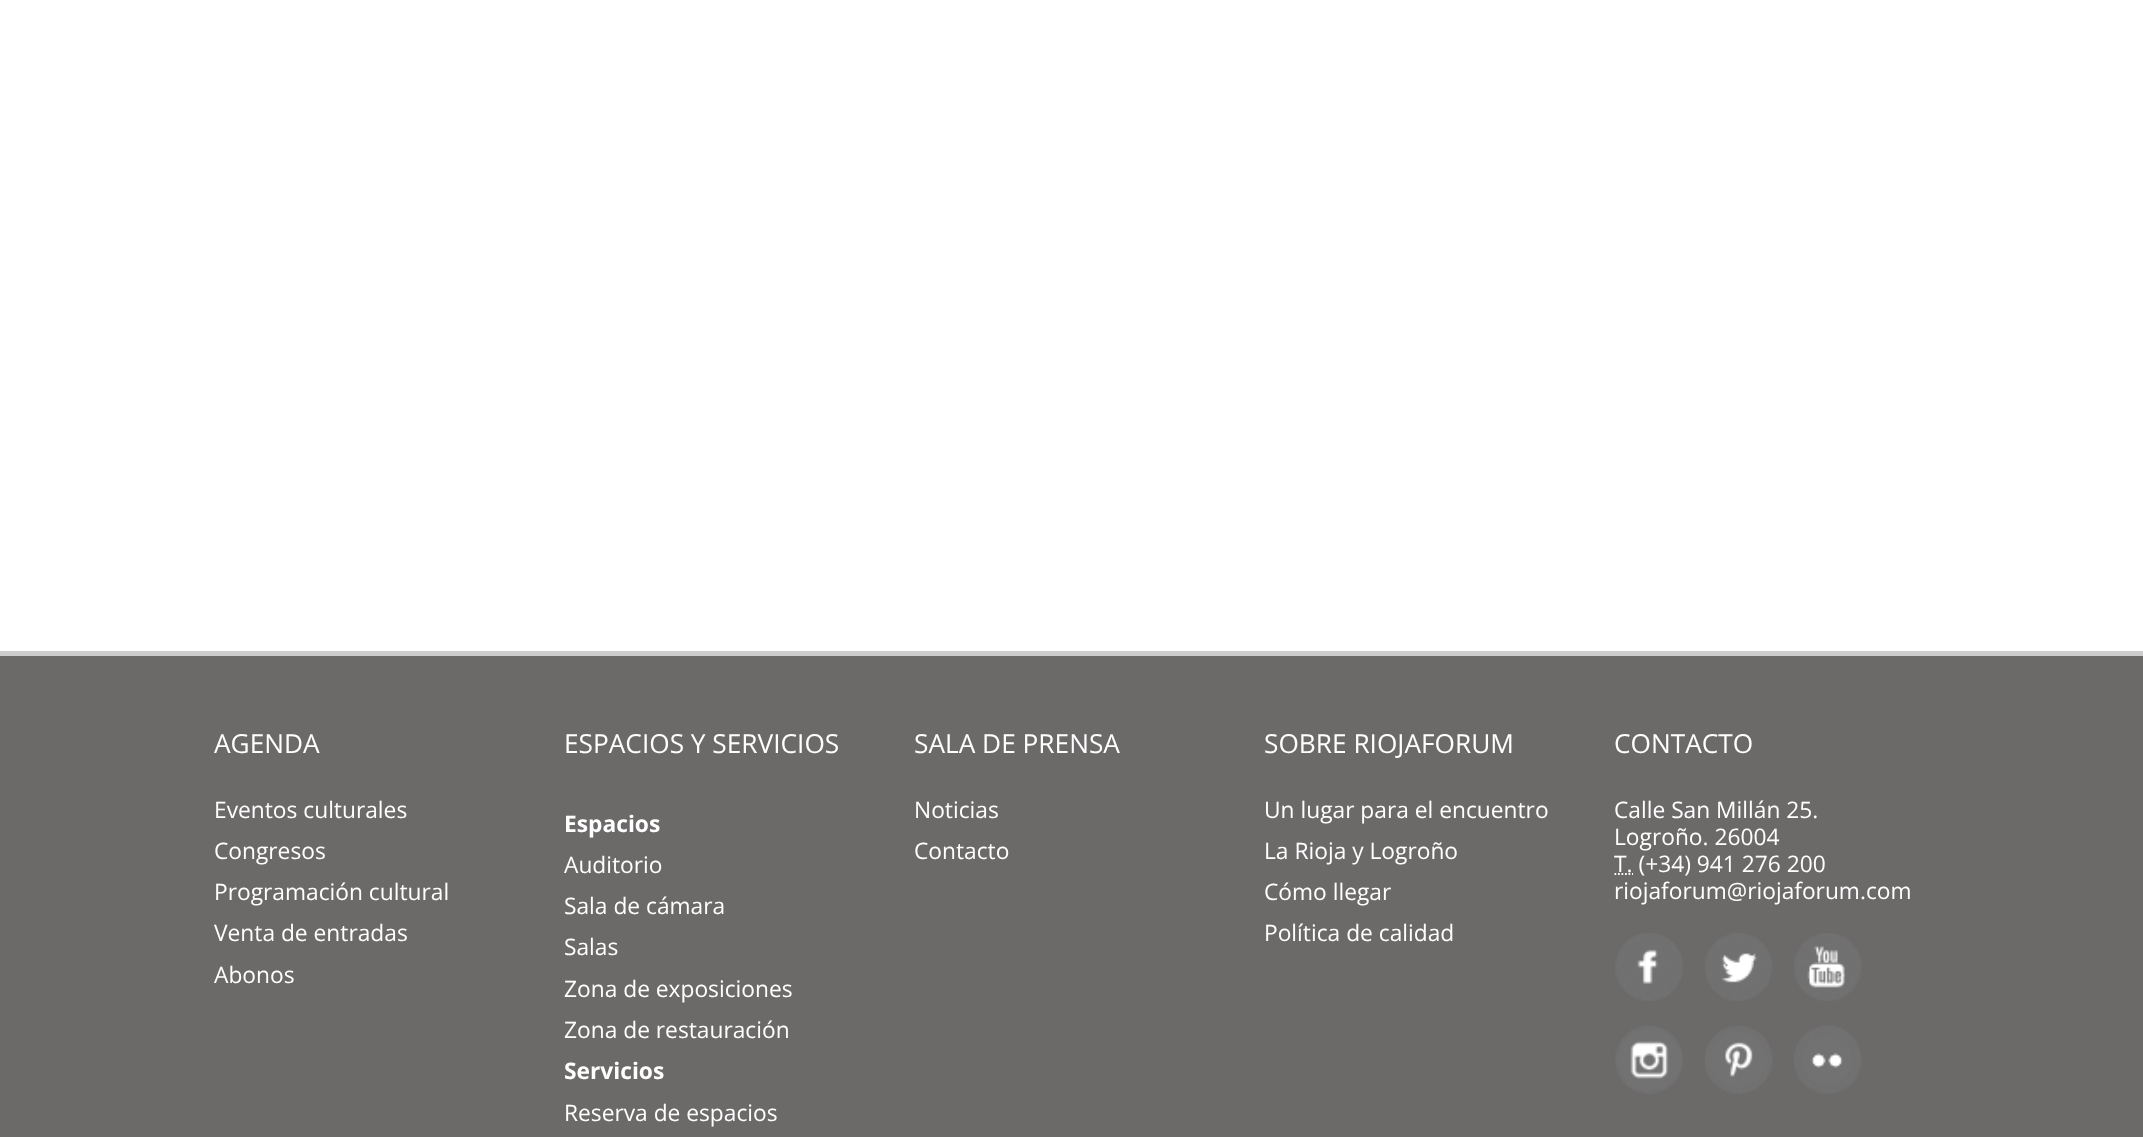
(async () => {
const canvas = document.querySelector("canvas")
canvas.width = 2143
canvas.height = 1137
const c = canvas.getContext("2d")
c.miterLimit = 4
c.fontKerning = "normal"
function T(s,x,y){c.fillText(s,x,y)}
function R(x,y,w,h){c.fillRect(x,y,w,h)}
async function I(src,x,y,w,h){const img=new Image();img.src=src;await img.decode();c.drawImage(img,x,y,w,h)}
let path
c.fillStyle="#fff"
R(0,0,2143,1137)
c.fillStyle="#6c6969"
R(0,656,2143,481)
c.fillStyle="#ccc"
R(0,651,2143,5)
c.font="26.25px Open Sans"
c.fillStyle="#fff"
T("AGENDA",214,753)
c.font="22.75px Open Sans"
T("Eventos culturales",214,818)
T("Congresos",214,859)
T("Programación cultural",214,900)
T("Venta de entradas",214,941)
T("Abonos",214,983)
c.font="26.25px Open Sans"
T("ESPACIOS Y SERVICIOS",564,753)
c.font="bold 22.75px Open Sans"
T("Espacios",564,832)
c.font="22.75px Open Sans"
T("Auditorio",564,873)
T("Sala de cámara",564,914)
T("Salas",564,955)
T("Zona de exposiciones",564,997)
T("Zona de restauración",564,1038)
c.font="bold 22.75px Open Sans"
T("Servicios",564,1079)
c.font="22.75px Open Sans"
T("Reserva de espacios",564,1121)
c.font="26.25px Open Sans"
T("SALA DE PRENSA",914,753)
c.font="22.75px Open Sans"
T("Noticias",914,818)
T("Contacto",914,859)
c.font="26.25px Open Sans"
T("SOBRE RIOJAFORUM",1264,753)
c.font="22.75px Open Sans"
T("Un lugar para el encuentro",1264,818)
T("La Rioja y Logroño",1264,859)
T("Cómo llegar",1264,900)
T("Política de calidad",1264,941)
c.font="26.25px Open Sans"
T("CONTACTO",1614,753)
c.font="22.75px Open Sans"
T("Calle San Millán 25.",1614,818)
T("Logroño. 26004",1614,845)
path = new Path2D("M1614.5 874h18.5")
c.strokeStyle="#fff"
c.lineWidth=1.8
c.setLineDash([1.75,1.75])
c.stroke(path)
T("T. (+34) 941 276 200",1614,872)
T("riojaforum@riojaforum.com",1614,899)
await I("1.png",1615,933,68,68)
await I("2.png",1705,933,68,68)
await I("3.png",1794,933,68,68)
await I("4.png",1615,1026,68,68)
await I("5.png",1705,1026,68,68)
await I("6.png",1794,1025,68,69)
})()
